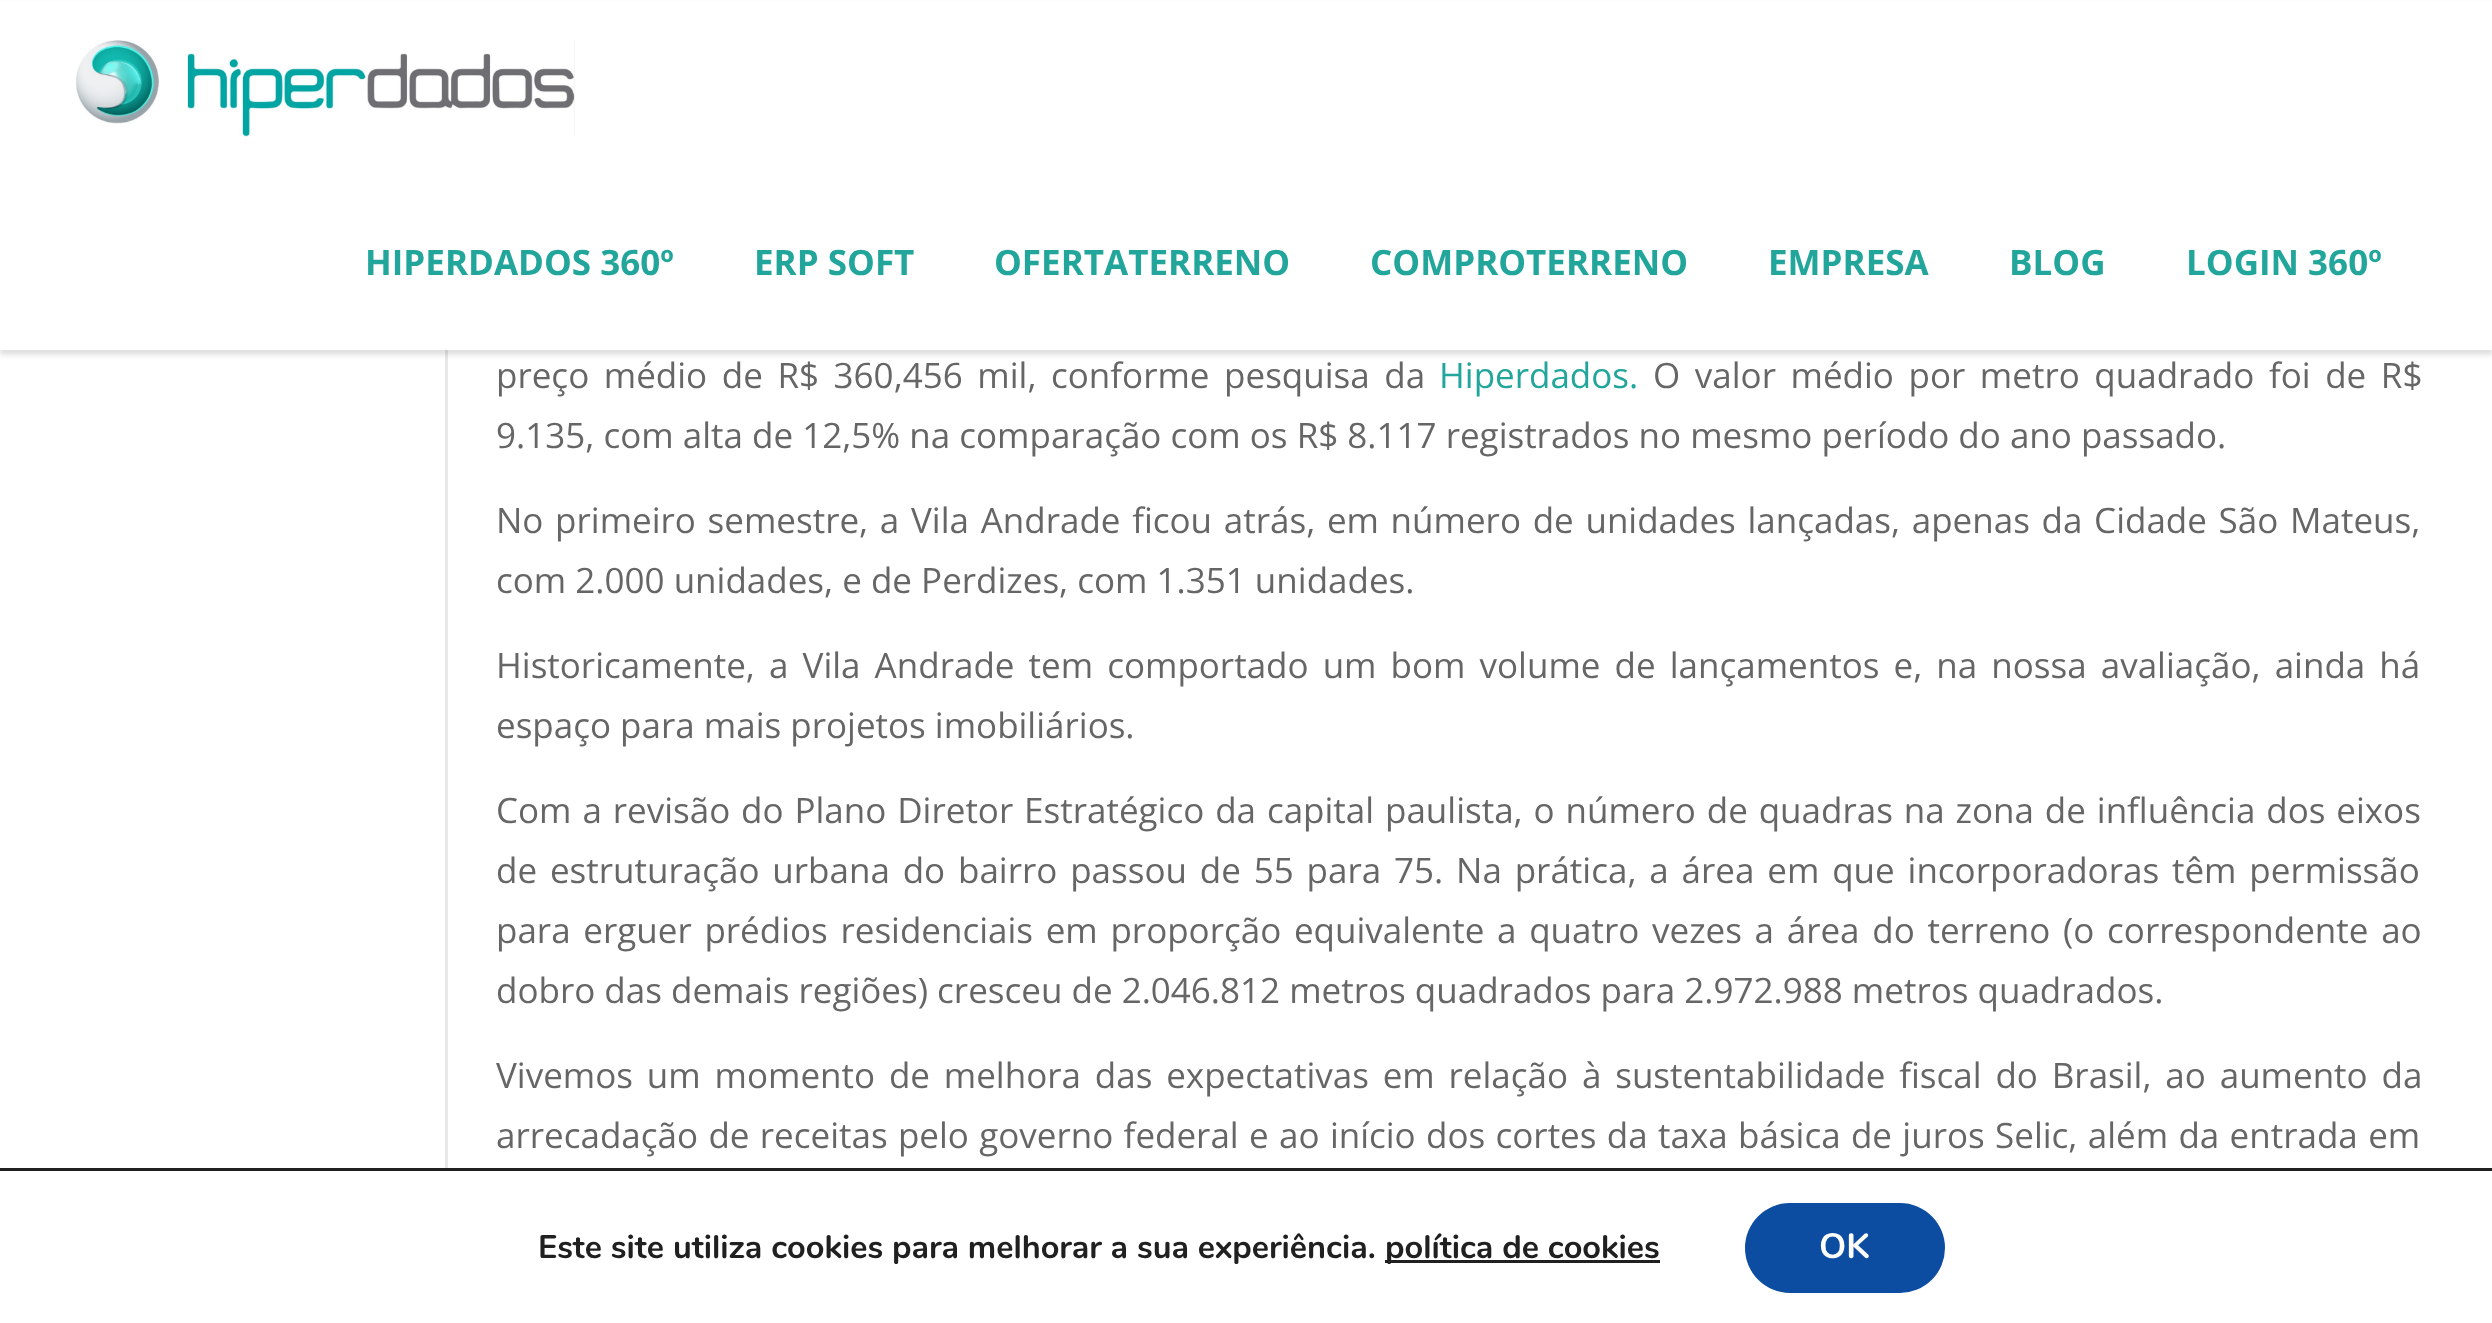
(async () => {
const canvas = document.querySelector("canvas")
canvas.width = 2492
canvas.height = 1323
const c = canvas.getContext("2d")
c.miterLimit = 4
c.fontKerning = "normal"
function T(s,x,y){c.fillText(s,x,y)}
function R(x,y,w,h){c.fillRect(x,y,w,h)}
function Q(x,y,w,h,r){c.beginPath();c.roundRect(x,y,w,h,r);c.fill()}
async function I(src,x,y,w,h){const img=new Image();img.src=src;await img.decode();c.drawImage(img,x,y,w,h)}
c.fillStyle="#fff"
R(0,0,2492,1323)
c.fillStyle="#e8e8e8"
R(445,350,3,818)
c.fillStyle="#0000001f"
c.filter="blur(2.5px)"
c.beginPath()
c.rect(0,5,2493,350)
c.fill()
c.filter="none"
c.fillStyle="#fff"
R(0,2,2492,348)
await I("1.png",76,40,499,97)
c.font="bold 35px Open Sans"
c.fillStyle="#22a69b"
T("HIPERDADOS 360º",365,275)
T("ERP SOFT",754,275)
T("OFERTATERRENO",994,275)
T("COMPROTERRENO",1370,275)
T("EMPRESA",1768,275)
T("BLOG",2009,275)
T("LOGIN 360º",2186,275)
c.wordSpacing="5.5px"
c.font="35px Open Sans"
c.fillStyle="#666"
T("preço médio de R$ 360,456 mil, conforme pesquisa da",496,388)
c.wordSpacing="0px"
c.fillStyle="#22a69b"
T("Hiperdados.",1439,388)
c.wordSpacing="5.5px"
c.fillStyle="#666"
T("O valor médio por metro quadrado foi de R$",1653,388)
c.wordSpacing="0px"
T("9.135, com alta de 12,5% na comparação com os R$ 8.117 registrados no mesmo período do ano passado.",496,448)
c.wordSpacing="2.6px"
T("No primeiro semestre, a Vila Andrade ficou atrás, em número de unidades lançadas, apenas da Cidade São Mateus,",496,533)
c.wordSpacing="0px"
T("com 2.000 unidades, e de Perdizes, com 1.351 unidades.",496,593)
c.wordSpacing="5px"
T("Historicamente, a Vila Andrade tem comportado um bom volume de lançamentos e, na nossa avaliação, ainda há",496,678)
c.wordSpacing="0px"
T("espaço para mais projetos imobiliários.",496,738)
c.wordSpacing="1.8px"
T("Com a revisão do Plano Diretor Estratégico da capital paulista, o número de quadras na zona de influência dos eixos",496,823)
c.wordSpacing="3.75px"
T("de estruturação urbana do bairro passou de 55 para 75. Na prática, a área em que incorporadoras têm permissão",496,883)
c.wordSpacing="3.6px"
T("para erguer prédios residenciais em proporção equivalente a quatro vezes a área do terreno (o correspondente ao",496,943)
c.wordSpacing="0px"
T("dobro das demais regiões) cresceu de 2.046.812 metros quadrados para 2.972.988 metros quadrados.",496,1003)
c.wordSpacing="4.75px"
T("Vivemos um momento de melhora das expectativas em relação à sustentabilidade fiscal do Brasil, ao aumento da",496,1088)
c.wordSpacing="1.25px"
T("arrecadação de receitas pelo governo federal e ao início dos cortes da taxa básica de juros Selic, além da entrada em",496,1148)
c.fillStyle="#202020"
R(0,1168,2492,3)
c.wordSpacing="0px"
c.font="bold 32.5px Nunito"
T("Este site utiliza cookies para melhorar a sua experiência.",538,1258)
R(1385,1260,275,3)
T("política de cookies",1385,1258)
c.fillStyle="#0c4da2"
Q(1745,1203,200,90,45)
c.font="bold 35px Nunito"
c.fillStyle="#fff"
T("OK",1819,1258)
})()
